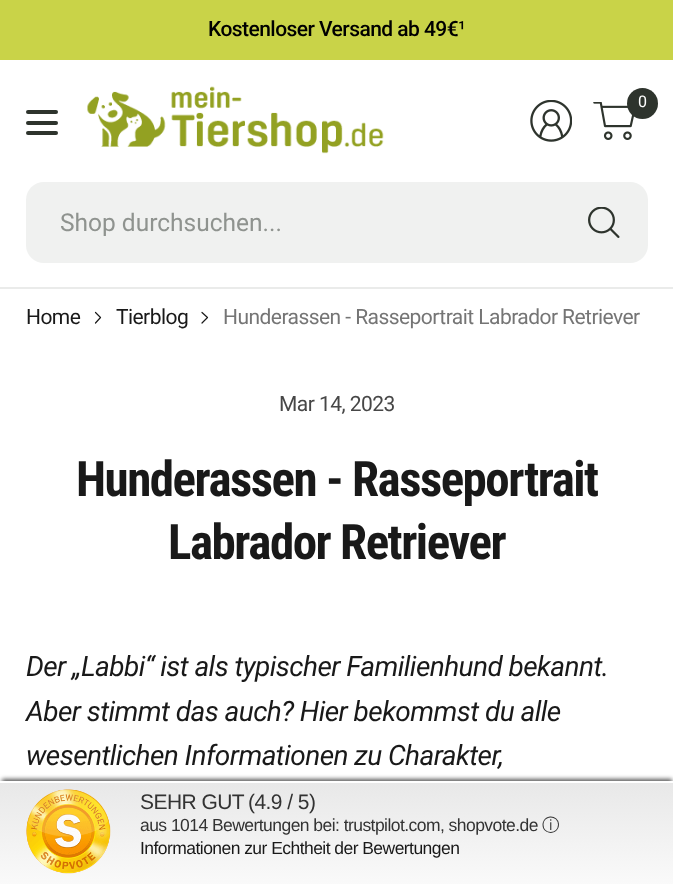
(async () => {
const canvas = document.querySelector("canvas")
canvas.width = 673
canvas.height = 884
const c = canvas.getContext("2d")
c.miterLimit = 4
c.fontKerning = "normal"
function T(s,x,y){c.fillText(s,x,y)}
function R(x,y,w,h){c.fillRect(x,y,w,h)}
function Q(x,y,w,h,r){c.beginPath();c.roundRect(x,y,w,h,r);c.fill()}
async function I(src,x,y,w,h){const img=new Image();img.src=src;await img.decode();c.drawImage(img,x,y,w,h)}
let gradient, path
c.fillStyle="#fff"
R(0,0,673,884)
c.fillStyle="#c9d348"
R(0,0,673,60)
c.letterSpacing="-0.55px"
c.font="500 21px Roboto"
c.fillStyle="#000"
T("Kostenloser Versand ab 49€",208,36)
c.font="21px Roboto"
T("¹",458,36)
await I("1.png",87,86,297,68)
await I("2.png",530,100,42,42)
await I("3.png",593,102,41,38)
c.fillStyle="#2e342d"
c.beginPath()
c.arc(642.5,103.5,15.5,0,7)
c.fill()
c.font="16px Roboto"
c.fillStyle="#fff"
T("0",638,107)
c.fillStyle="#2e342d"
Q(26,110,32,4,2)
Q(26,121,32,4,2)
Q(26,131,32,4,2)
c.fillStyle="#f0f1f0"
Q(26,182,622,81,18)
c.letterSpacing="0px"
c.font="24.5px Roboto"
c.fillStyle="#8f938f"
T("Shop durchsuchen...",60,231)
await I("4.png",588,207,32,31)
c.fillStyle="#eaebea"
R(0,287,673,2)
c.letterSpacing="-0.55px"
c.font="21px Roboto"
c.fillStyle="#191919"
T("Home",26,324)
path = new Path2D("M95.5 312.5l5 5l-5 5.5")
c.strokeStyle="#191919"
c.lineWidth=1.2
c.lineCap="round"
c.lineJoin="round"
c.stroke(path)
T("Tierblog",116,324)
path = new Path2D("M202 312.5l5.5 5l-5.5 5.5")
c.stroke(path)
c.fillStyle="#757575"
T("Hunderassen - Rasseportrait Labrador Retriever",223,324)
c.fillStyle="#474747"
T("Mar 14, 2023",279,411)
c.letterSpacing="-1.5px"
c.font="bold 49px Roboto Condensed"
c.fillStyle="#191919"
T("Hunderassen - Rasseportrait",76,496)
T("Labrador Retriever",168,559)
c.letterSpacing="-0.55px"
c.font="italic 28px Roboto"
T("Der „Labbi“ ist als typischer Familienhund bekannt.",26,676)
T("Aber stimmt das auch? Hier bekommst du alle",26,721)
T("wesentlichen Informationen zu Charakter,",26,765)
c.fillStyle="#000000a6"
c.filter="blur(2px)"
c.beginPath()
c.rect(2,779,670,101)
c.fill()
c.filter="none"
gradient = c.createLinearGradient(337,782,337,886)
gradient.addColorStop(0,"#f0f0f0")
gradient.addColorStop(0,"#e8e8e8")
gradient.addColorStop(1,"#fafafa")
c.fillStyle = gradient
R(0,783,673,101)
c.fillStyle="#fff"
R(0,781,673,2)
await I("5.png",26,789,85,85)
c.font="21px Liberation Sans"
c.fillStyle="#333"
T("SEHR GUT",140,809)
T("(4.9 / 5)",248,809)
c.font="17.5px Liberation Sans"
T("aus 1014 Bewertungen bei: trustpilot.com, shopvote.de",140,831)
c.font="500 17.5px WenQuanYi Zen Hei"
T("ⓘ",542,831)
c.font="17.5px Liberation Sans"
c.fillStyle="#191919"
T("Informationen zur Echtheit der Bewertungen",140,854)
})()
